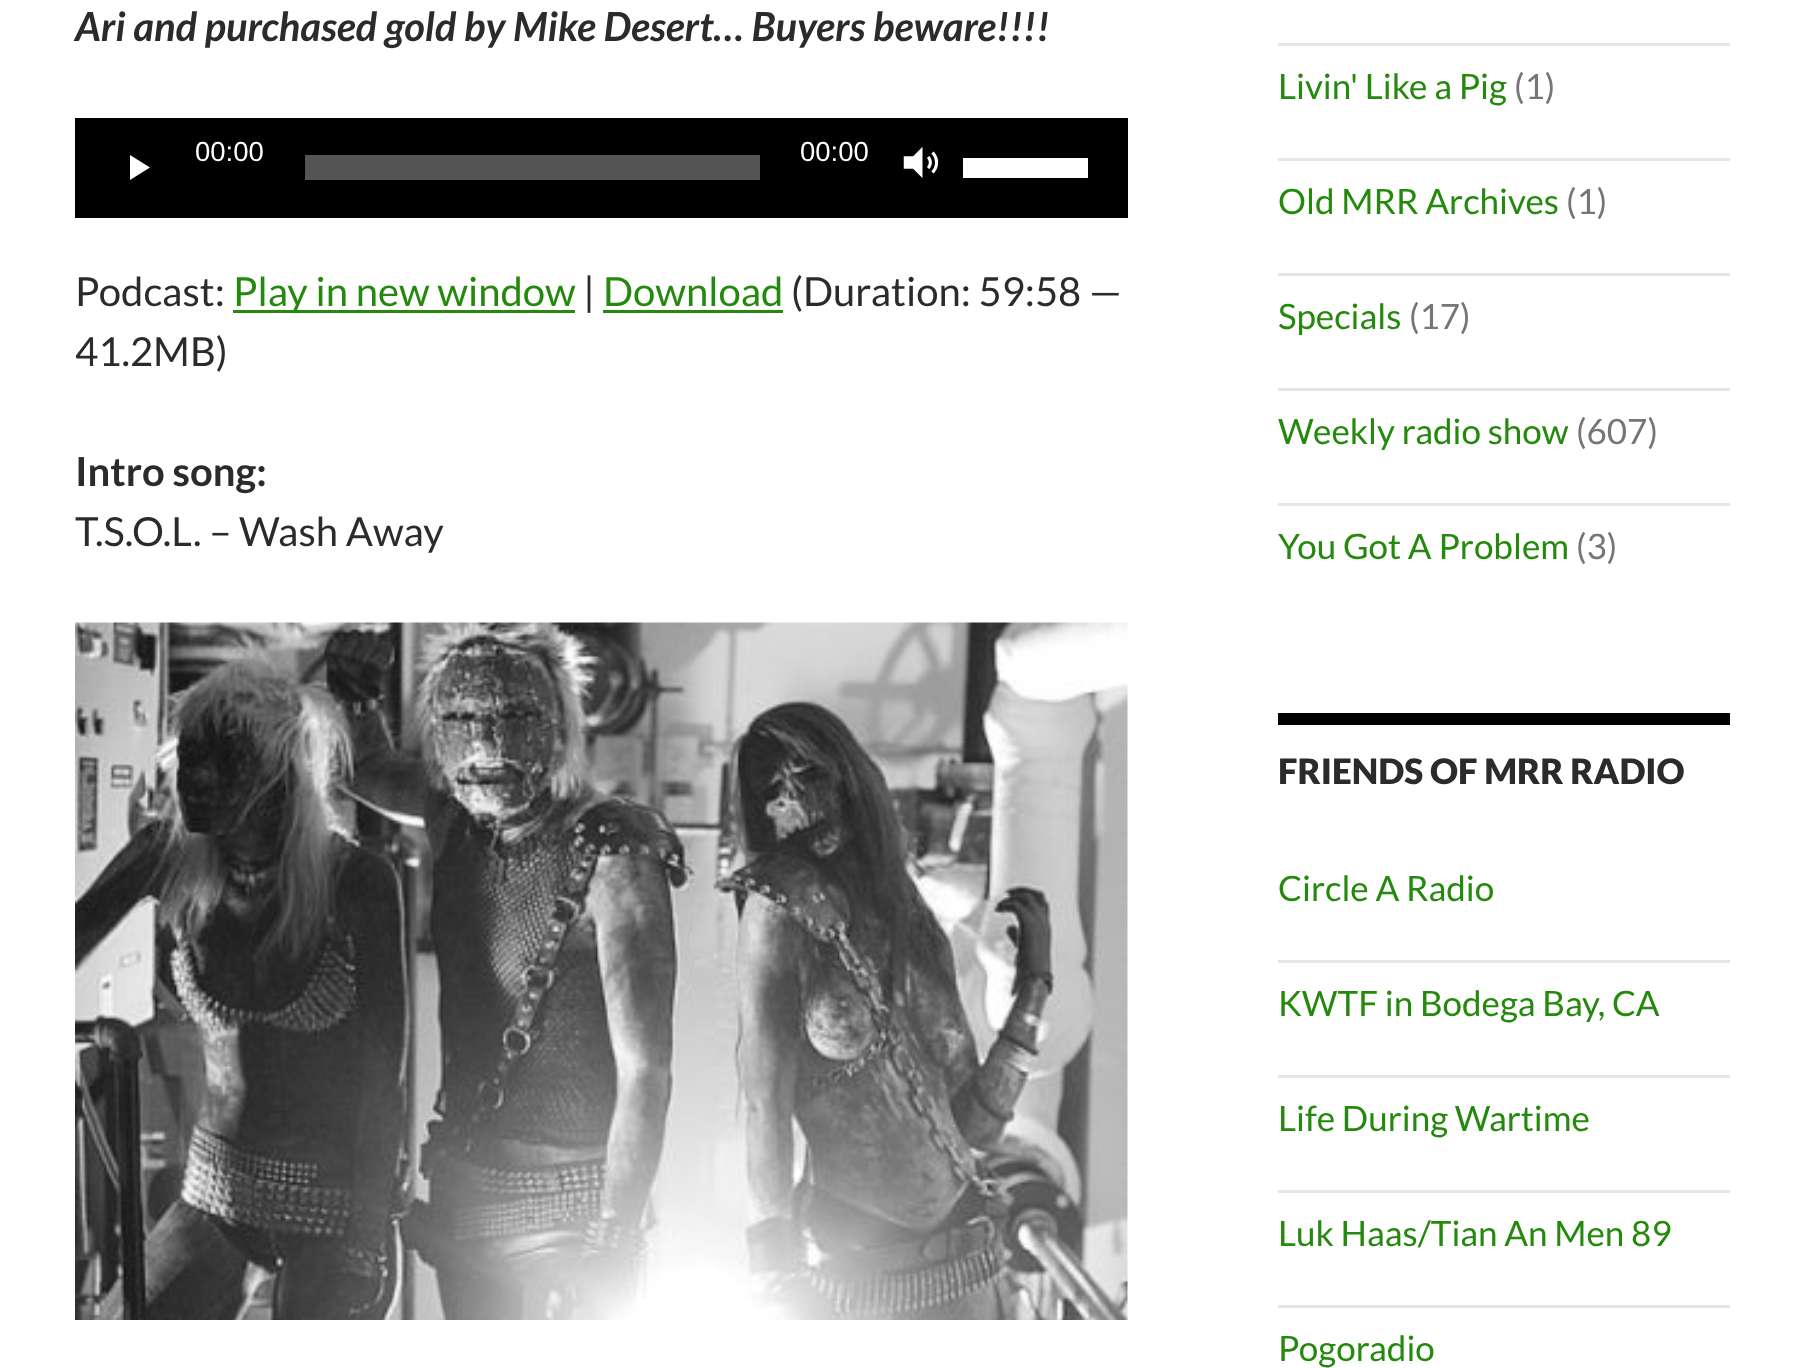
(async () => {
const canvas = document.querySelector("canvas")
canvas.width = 1803
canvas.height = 1368
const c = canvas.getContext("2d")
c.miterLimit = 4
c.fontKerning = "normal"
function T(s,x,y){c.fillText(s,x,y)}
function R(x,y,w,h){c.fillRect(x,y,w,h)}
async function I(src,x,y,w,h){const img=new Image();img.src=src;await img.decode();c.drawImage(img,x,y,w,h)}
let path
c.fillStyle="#fff"
R(0,0,1803,1368)
c.font="italic bold 40px Lato"
c.fillStyle="#2b2b2b"
T("Ari and purchased gold by Mike Desert… Buyers beware!!!!",75,41)
c.fillStyle="#000"
R(75,118,1053,100)
c.fillStyle="#fff"
path = new Path2D("M130 180v-25l20 12.5z")
c.fill(path)
c.font="27.5px Liberation Sans"
T("00:00",195,161)
c.fillStyle="#545454"
R(305,155,455,25)
c.fillStyle="#fff"
T("00:00",800,161)
await I("1.png",903,147,36,31)
R(963,158,125,20)
c.font="40px Lato"
c.fillStyle="#2b2b2b"
T("Podcast:",75,306)
c.fillStyle="#24890d"
R(233,310,342,3)
T("Play in new window",233,306)
c.fillStyle="#2b2b2b"
T("|",583,306)
c.fillStyle="#24890d"
T("Download",603,306)
R(603,310,180,3)
c.fillStyle="#2b2b2b"
T("(Duration: 59:58 —",791,306)
T("41.2MB)",75,366)
c.font="bold 40px Lato"
T("Intro song:",75,486)
c.font="40px Lato"
T("T.S.O.L. – Wash Away",75,546)
await I("2.png",75,622,1053,698)
c.fillStyle="#e6e6e6"
R(1278,43,452,3)
c.font="35px Lato"
c.fillStyle="#24890d"
T("Livin' Like a Pig",1278,99)
c.fillStyle="#767676"
T("(1)",1514,99)
c.fillStyle="#e6e6e6"
R(1278,158,452,3)
c.fillStyle="#24890d"
T("Old MRR Archives",1278,214)
c.fillStyle="#767676"
T("(1)",1566,214)
c.fillStyle="#e6e6e6"
R(1278,273,452,3)
c.fillStyle="#24890d"
T("Specials",1278,329)
c.fillStyle="#767676"
T("(17)",1409,329)
c.fillStyle="#e6e6e6"
R(1278,388,452,3)
c.fillStyle="#24890d"
T("Weekly radio show",1278,444)
c.fillStyle="#767676"
T("(607)",1576,444)
c.fillStyle="#e6e6e6"
R(1278,503,452,3)
c.fillStyle="#24890d"
T("You Got A Problem",1278,559)
c.fillStyle="#767676"
T("(3)",1576,559)
c.fillStyle="#000"
R(1278,713,452,12)
c.font="900 35px Lato"
c.fillStyle="#2b2b2b"
T("FRIENDS OF MRR RADIO",1278,784)
c.font="35px Lato"
c.fillStyle="#24890d"
T("Circle A Radio",1278,901)
c.fillStyle="#e6e6e6"
R(1278,960,452,3)
c.fillStyle="#24890d"
T("KWTF in Bodega Bay, CA",1278,1016)
c.fillStyle="#e6e6e6"
R(1278,1075,452,3)
c.fillStyle="#24890d"
T("Life During Wartime",1278,1131)
c.fillStyle="#e6e6e6"
R(1278,1190,452,3)
c.fillStyle="#24890d"
T("Luk Haas/Tian An Men 89",1278,1246)
c.fillStyle="#e6e6e6"
R(1278,1305,452,3)
c.fillStyle="#24890d"
T("Pogoradio",1278,1361)
})()
